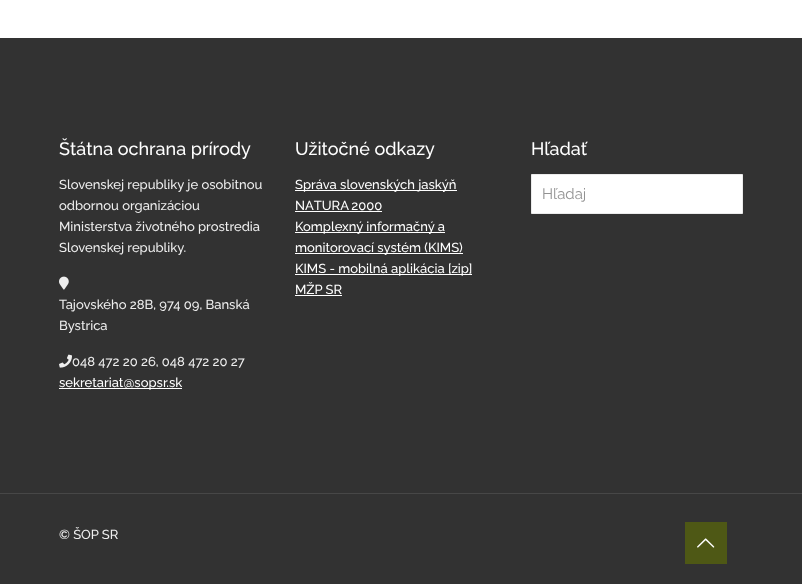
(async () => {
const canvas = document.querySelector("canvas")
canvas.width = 802
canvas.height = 584
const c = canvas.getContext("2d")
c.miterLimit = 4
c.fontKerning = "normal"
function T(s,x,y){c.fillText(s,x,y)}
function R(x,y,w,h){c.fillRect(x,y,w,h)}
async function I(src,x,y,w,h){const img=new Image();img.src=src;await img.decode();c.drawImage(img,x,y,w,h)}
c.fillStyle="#fff"
R(0,0,802,584)
c.fillStyle="#323232"
R(0,38,802,546)
c.font="500 18px Raleway"
c.fillStyle="#fff"
T("Štátna ochrana prírody",59,155)
c.font="500 13px Raleway"
c.fillStyle="#eee"
T("Slovenskej republiky je osobitnou",59,189)
T("odbornou organizáciou",59,210)
T("Ministerstva životného prostredia",59,231)
T("Slovenskej republiky.",59,252)
await I("1.png",59,276,10,14)
T("Tajovského 28B, 974 09, Banská",59,309)
T("Bystrica",59,330)
await I("2.png",59,354,13,14)
T("048 472 20 26, 048 472 20 27",72,366)
c.fillStyle="#fff"
R(59,388,123,1)
T("sekretariat@sopsr.sk",59,387)
c.font="500 18px Raleway"
T("Užitočné odkazy",295,155)
R(295,190,162,1)
c.font="500 13px Raleway"
T("Správa slovenských jaskýň",295,189)
c.wordSpacing="-1px"
T("NATURA 2000",295,210)
R(295,211,87,1)
R(295,232,150,1)
c.wordSpacing="0px"
T("Komplexný informačný a",295,231)
R(295,253,168,1)
T("monitorovací systém (KIMS)",295,252)
R(295,274,177,1)
T("KIMS - mobilná aplikácia [zip]",295,273)
T("MŽP SR",295,294)
R(295,295,47,1)
c.font="500 18px Raleway"
T("Hľadať",531,155)
c.beginPath()
c.rect(531.5,174.5,211,39)
c.fill()
c.strokeStyle="#ebebeb"
c.stroke()
c.font="15px Raleway"
c.fillStyle="#929292"
T("Hľadaj",542,199)
c.fillStyle="#474747"
R(0,493,802,1)
c.font="500 13px Raleway"
c.fillStyle="#eee"
T("© ŠOP SR",59,539)
c.fillStyle="#4e5815"
R(685,522,42,42)
await I("3.png",697,538,18,10)
})()
